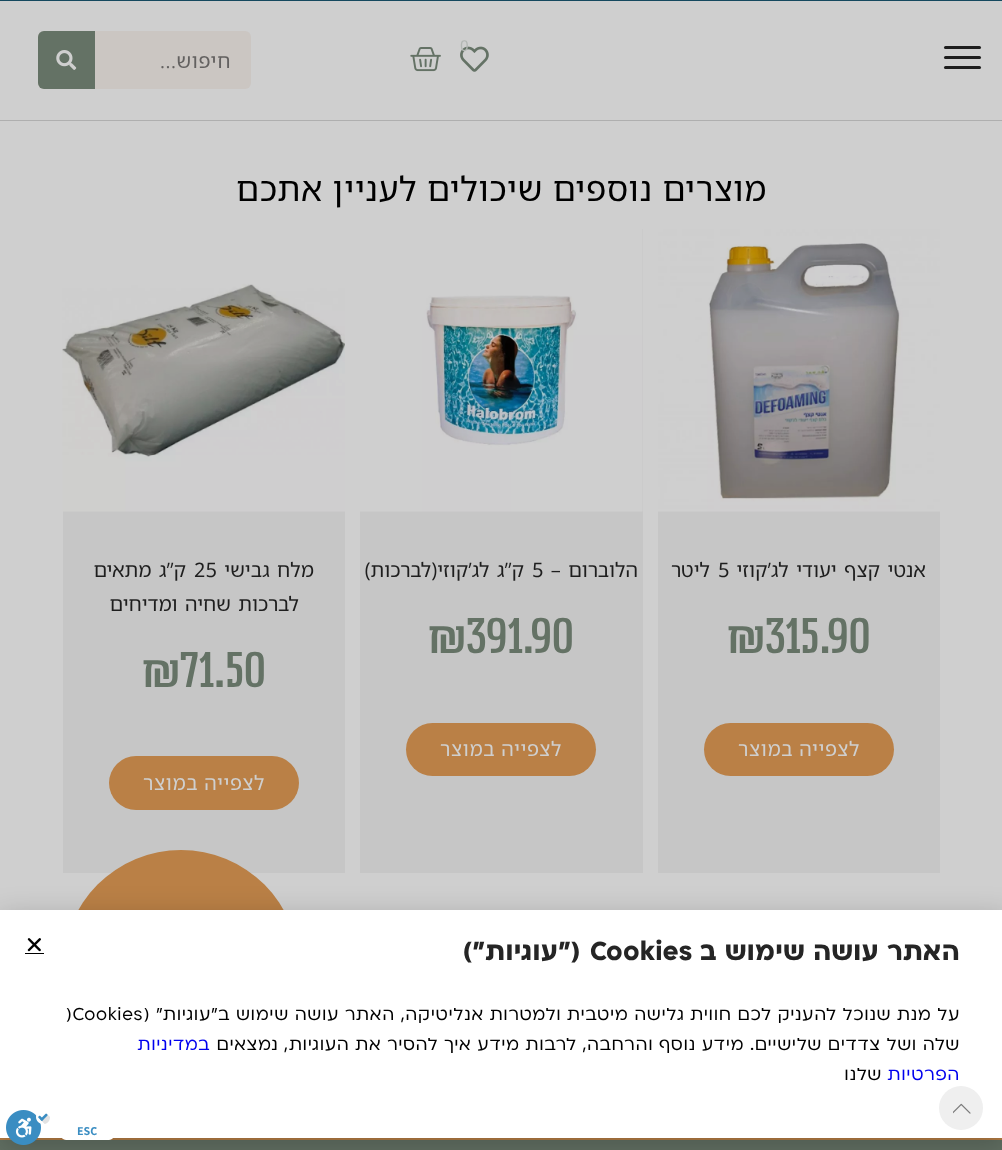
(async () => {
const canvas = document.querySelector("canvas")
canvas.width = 1002
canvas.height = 1150
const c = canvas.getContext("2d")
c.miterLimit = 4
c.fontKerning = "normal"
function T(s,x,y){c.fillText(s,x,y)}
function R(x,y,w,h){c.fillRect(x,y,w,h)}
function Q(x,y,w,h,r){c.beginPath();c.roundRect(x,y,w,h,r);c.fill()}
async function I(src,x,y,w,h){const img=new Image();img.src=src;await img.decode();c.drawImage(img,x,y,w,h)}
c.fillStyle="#cfcfcf"
R(0,0,1002,1150)
c.fillStyle="#afafaf"
R(0,120,1002,1)
c.fillStyle="#1e1e1e"
Q(944,56,37,3,1.5)
Q(944,46,37,3,1.5)
Q(944,66,37,3,1.5)
await I("1.png",460,46,29,26)
c.letterSpacing="0.62px"
c.font="15px Noto Sans Hebrew"
c.fillStyle="#b2b6b3"
T("0",460,51)
await I("2.png",410,47,31,25)
c.fillStyle="#cbc6c2"
Q(38,31,213,58,6)
c.direction="rtl"
c.font="20px Noto Sans Hebrew"
c.fillStyle="#636160"
T("חיפוש...",231,68)
c.fillStyle="#647265"
c.beginPath()
c.roundRect(38,31,57,58,[6,0,0,6])
c.fill()
await I("3.png",56,50,21,20)
c.font="33.75px Noto Sans Hebrew"
c.fillStyle="#000"
T("מוצרים נוספים שיכולים לעניין אתכם",767,201)
c.fillStyle="#c6c6c6"
R(658,511,282,362)
await I("4.png",658,229,282,283)
c.letterSpacing="0px"
c.wordSpacing="2px"
c.font="20px Noto Sans Hebrew"
c.fillStyle="#1e1e1e"
T("אנטי קצף יעודי לג’קוזי",926,577)
c.wordSpacing="0px"
c.direction="ltr"
T("5",718,577)
c.direction="rtl"
T("ליטר",710,577)
c.letterSpacing="-0.5px"
c.direction="ltr"
c.font="62.5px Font"
c.fillStyle="#647265"
T("₪315.90",728,653)
c.fillStyle="#ba8046"
Q(704,723,190,53,26.5)
c.letterSpacing="0.62px"
c.direction="rtl"
c.font="20px Noto Sans Hebrew"
c.fillStyle="#cfcfcf"
T("לצפייה במוצר",860,756)
c.fillStyle="#c6c6c6"
R(360,229,283,644)
await I("5.png",360,229,283,283)
c.letterSpacing="0px"
c.wordSpacing="2px"
c.fillStyle="#1e1e1e"
T("הלוברום –",638,577)
c.wordSpacing="0px"
c.direction="ltr"
T("5",532,577)
c.wordSpacing="2px"
c.direction="rtl"
T("ק”ג לג’קוזי(לברכות)",524,577)
c.letterSpacing="-0.5px"
c.wordSpacing="0px"
c.direction="ltr"
c.font="62.5px Font"
c.fillStyle="#647265"
T("₪391.90",429,653)
c.fillStyle="#ba8046"
Q(406,723,190,53,26.5)
c.letterSpacing="0.62px"
c.direction="rtl"
c.font="20px Noto Sans Hebrew"
c.fillStyle="#cfcfcf"
T("לצפייה במוצר",562,756)
c.fillStyle="#c6c6c6"
R(63,511,282,362)
await I("6.png",62,229,283,283)
c.letterSpacing="0px"
c.wordSpacing="2px"
c.fillStyle="#1e1e1e"
T("מלח גבישי",314,577)
c.wordSpacing="0px"
c.direction="ltr"
T("25",194,577)
c.wordSpacing="2px"
c.direction="rtl"
T("ק”ג מתאים",186,577)
T("לברכות שחיה ומדיחים",299,611)
c.letterSpacing="-0.5px"
c.wordSpacing="0px"
c.direction="ltr"
c.font="62.5px Font"
c.fillStyle="#647265"
T("₪71.50",143,687)
c.fillStyle="#ba8046"
Q(109,756,190,54,27)
c.letterSpacing="0.62px"
c.direction="rtl"
c.font="20px Noto Sans Hebrew"
c.fillStyle="#cfcfcf"
T("לצפייה במוצר",265,790)
c.fillStyle="#ba8046"
R(0,1138,1002,2)
Q(63,850,236,238,118)
c.fillStyle="#647265"
R(0,1140,1002,10)
c.fillStyle="#00000033"
c.filter="blur(14.5px)"
c.beginPath()
c.rect(-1,916,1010,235)
c.fill()
c.filter="none"
c.fillStyle="#fff"
R(0,910,1002,228)
c.fillStyle="#efefef"
c.beginPath()
c.arc(961,1108,22,0,7)
c.fill()
await I("7.png",953,1103,18,11)
c.letterSpacing="0.4px"
c.font="bold 30px 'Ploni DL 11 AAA'"
c.fillStyle="#252525"
T("האתר עושה שימוש ב",960,960)
c.direction="ltr"
T("Cookies",590,960)
c.direction="rtl"
T("(\"עוגיות\")",581,960)
c.letterSpacing="0.62px"
c.font="20px 'Ploni DL 11 AAA'"
c.fillStyle="#000"
T("על מנת שנוכל להעניק לכם חווית גלישה מיטבית ולמטרות אנליטיקה, האתר עושה שימוש ב”עוגיות” (",960,1020)
c.direction="ltr"
T(")Cookies",66,1020)
c.direction="rtl"
T("שלה ושל צדדים שלישיים. מידע נוסף והרחבה, לרבות מידע איך להסיר את העוגיות, נמצאים",960,1050)
c.fillStyle="#00e"
T("במדיניות",210,1050)
T("הפרטיות",960,1080)
c.fillStyle="#000"
T("שלנו",882,1080)
await I("8.png",27,938,14,14)
R(25,953,19,1)
c.fillStyle="#15495f"
R(0,0,1002,1)
c.fillStyle="#fff"
Q(61,1123,53,17,5)
c.letterSpacing="0px"
c.direction="ltr"
c.font="bold 12px Assistant"
c.fillStyle="#3a8dc2"
T("ESC",77,1135)
await I("9.png",6,1110,44,35)
})()
